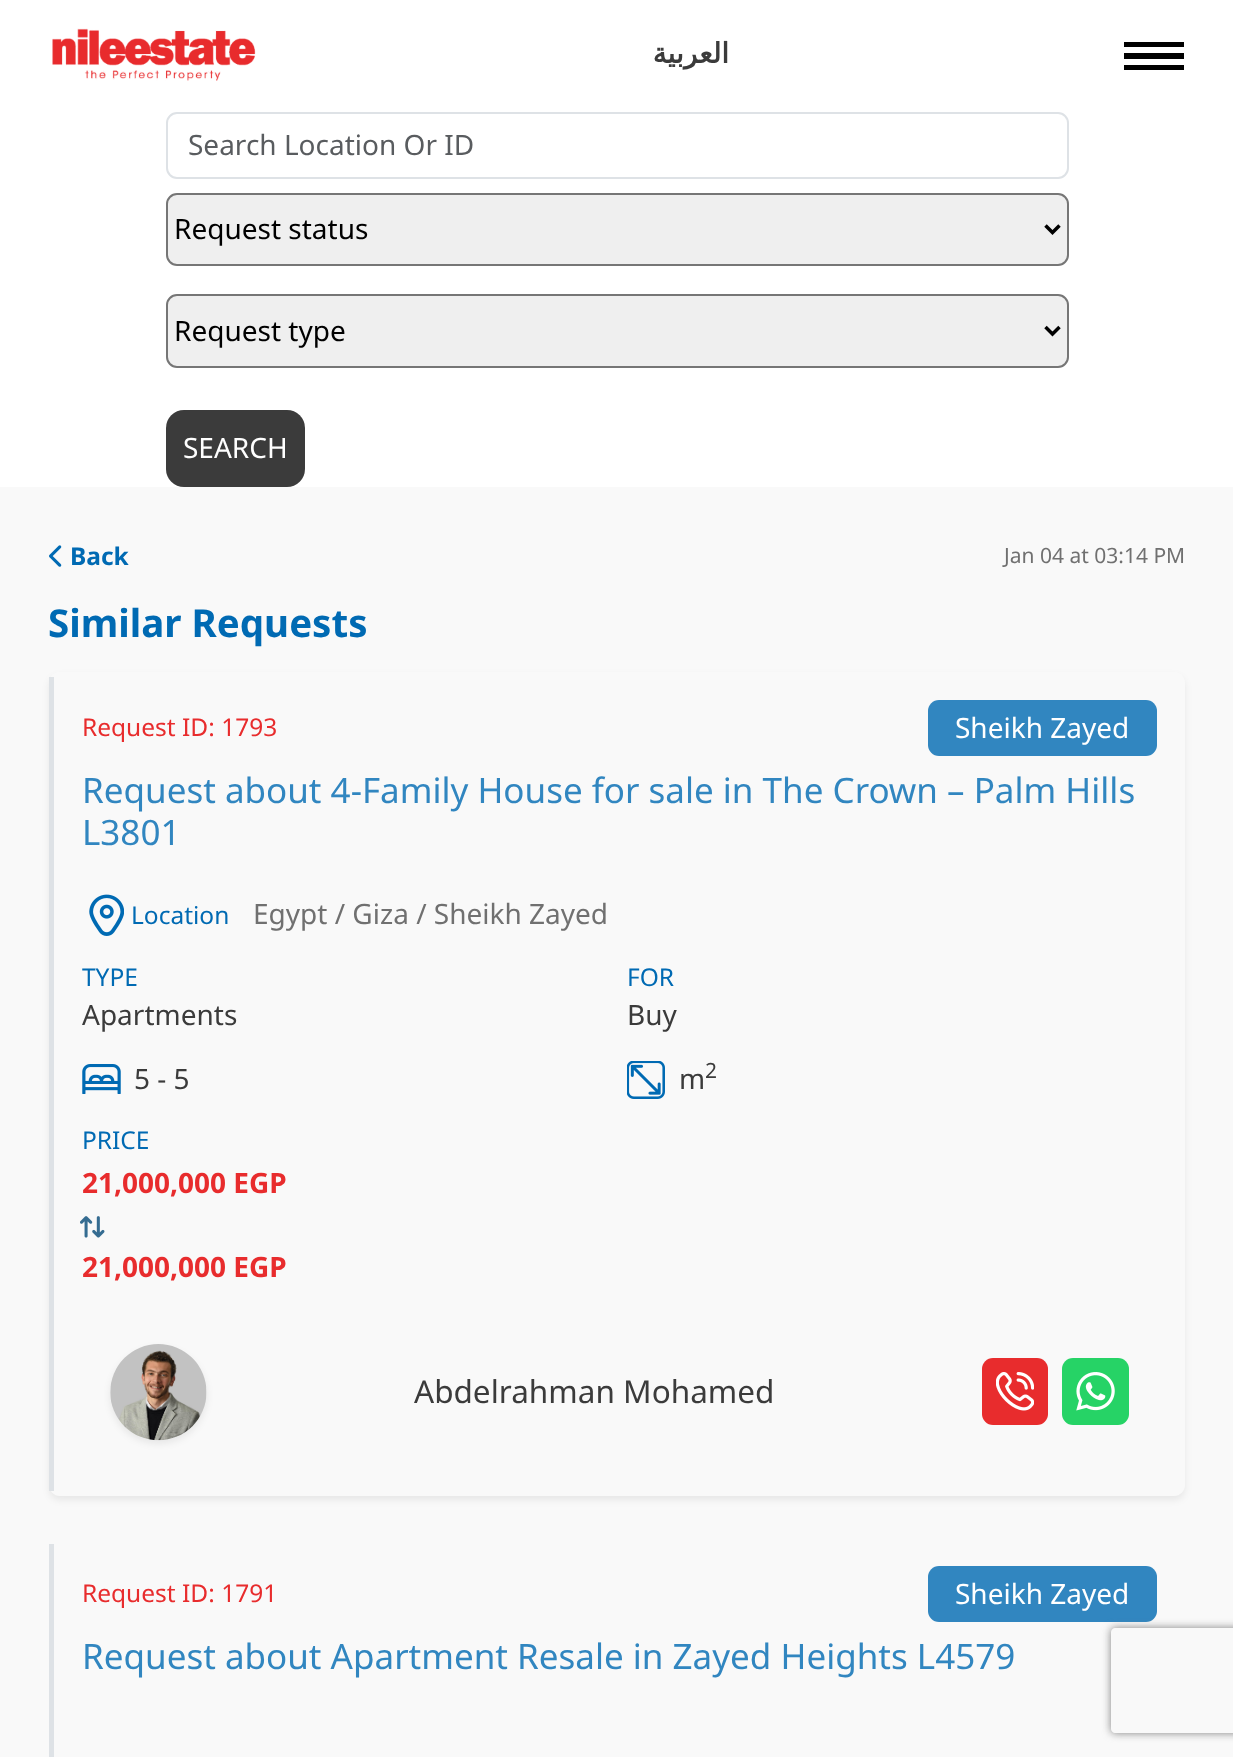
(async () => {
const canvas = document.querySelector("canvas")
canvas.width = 1233
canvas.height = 1757
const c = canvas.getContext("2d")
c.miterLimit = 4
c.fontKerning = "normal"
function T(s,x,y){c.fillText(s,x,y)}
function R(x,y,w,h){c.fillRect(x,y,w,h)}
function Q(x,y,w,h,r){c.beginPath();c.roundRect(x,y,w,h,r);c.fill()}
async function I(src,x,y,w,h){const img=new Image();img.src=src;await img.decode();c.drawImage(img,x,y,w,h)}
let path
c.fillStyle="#fff"
R(0,0,1233,1757)
await I("1.png",52,28,204,53)
c.direction="rtl"
c.font="bold 28px DejaVu Sans"
c.fillStyle="#3b3b3b"
T("العربية",729,63)
c.fillStyle="#000"
R(1124,42,60,5)
R(1124,53,60,6)
R(1124,65,60,5)
c.beginPath()
c.roundRect(167,113,901,65,10)
c.strokeStyle="#dee2e6"
c.lineWidth=2
c.stroke()
c.direction="ltr"
c.font="28px Noto Sans"
c.fillStyle="#595c5f"
T("Search Location Or ID",188,155)
c.fillStyle="#efefef"
c.beginPath()
c.roundRect(167,194,901,71,10)
c.fill()
c.strokeStyle="#767676"
c.stroke()
path = new Path2D("M1045.5 225.5l7 7l7-7")
c.strokeStyle="#000"
c.lineWidth=3.5
c.stroke(path)
c.fillStyle="#000"
T("Request status",174,239)
c.fillStyle="#efefef"
c.beginPath()
c.roundRect(167,295,901,72,10)
c.fill()
c.strokeStyle="#767676"
c.lineWidth=2
c.stroke()
path = new Path2D("M1045.5 327l7 7l7-7")
c.strokeStyle="#000"
c.lineWidth=3.5
c.stroke(path)
c.fillStyle="#000"
T("Request type",174,341)
c.fillStyle="#3b3b3b"
Q(166,410,139,77,18)
c.fillStyle="#fff"
T("SEARCH",183,458)
c.fillStyle="#f9f9f9"
R(0,487,1233,1270)
await I("2.png",49,545,13,22)
c.font="bold 24.5px Noto Sans"
c.fillStyle="#006ab3"
T("Back",70,565)
c.font="21px 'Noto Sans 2'"
c.fillStyle="#707070"
T("Jan 04 at 03:14 PM",1004,563)
c.font="bold 38.5px Noto Sans"
c.fillStyle="#006ab3"
T("Similar Requests",48,637)
c.save()
path = new Path2D("M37 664h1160v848h-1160zm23 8h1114c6 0 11 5 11 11v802c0 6-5 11-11 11h-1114c-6 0-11-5-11-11v-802c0-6 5-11 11-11z")
c.clip(path,"evenodd")
c.fillStyle="#00000012"
c.filter="blur(3.5px)"
c.beginPath()
c.roundRect(49,676,1136,824,11)
c.fill()
c.filter="none"
c.restore()
c.fillStyle="#dee2e6"
R(49,677,5,814)
c.font="24.5px 'Noto Sans 2'"
c.fillStyle="#e82c2d"
T("Request ID: 1793",82,736)
c.fillStyle="#3186c0"
Q(928,700,229,56,11)
c.font="28px Noto Sans"
c.fillStyle="#fff"
T("Sheikh Zayed",955,738)
c.font="35px 'Noto Sans 2'"
c.fillStyle="#3186c0"
T("Request about 4-Family House for sale in The Crown – Palm Hills",82,803)
T("L3801",82,845)
await I("3.png",89,894,35,42)
c.font="24.5px 'Noto Sans 2'"
c.fillStyle="#006ab3"
T("Location",131,924)
c.font="28px 'Noto Sans 2'"
c.fillStyle="#707070"
T("Egypt / Giza / Sheikh Zayed",253,924)
c.font="24.5px 'Noto Sans 2'"
c.fillStyle="#006ab3"
T("TYPE",82,986)
c.font="28px 'Noto Sans 2'"
c.fillStyle="#3b3b3b"
T("Apartments",82,1025)
c.font="24.5px 'Noto Sans 2'"
c.fillStyle="#006ab3"
T("FOR",627,986)
c.font="28px 'Noto Sans 2'"
c.fillStyle="#3b3b3b"
T("Buy",627,1025)
await I("4.png",82,1064,39,30)
T("5 - 5",134,1089)
await I("5.png",627,1061,38,38)
c.font="21px 'Noto Sans 2'"
T("2",705,1078)
c.font="28px 'Noto Sans 2'"
T("m",679,1089)
c.font="24.5px 'Noto Sans 2'"
c.fillStyle="#006ab3"
T("PRICE",82,1149)
c.font="bold 28px Noto Sans"
c.fillStyle="#e82c2d"
T("21,000,000 EGP",82,1193)
await I("6.png",80,1216,25,22)
T("21,000,000 EGP",82,1277)
c.fillStyle="#00000012"
c.filter="blur(3.5px)"
c.beginPath()
c.roundRect(110,1348,97,96,48)
c.fill()
c.filter="none"
await I("7.png",110,1344,97,97)
c.font="31.5px 'Noto Sans 2'"
c.fillStyle="#3b3b3b"
T("Abdelrahman Mohamed",414,1403)
c.fillStyle="#e82c2d"
Q(982,1358,66,67,11)
await I("8.png",996,1372,38,39)
c.fillStyle="#26d366"
Q(1062,1358,67,67,11)
await I("9.png",1076,1372,39,39)
c.fillStyle="#dee2e6"
R(49,1544,5,213)
c.font="24.5px 'Noto Sans 2'"
c.fillStyle="#e82c2d"
T("Request ID: 1791",82,1602)
c.fillStyle="#3186c0"
Q(928,1566,229,56,11)
c.font="28px Noto Sans"
c.fillStyle="#fff"
T("Sheikh Zayed",955,1604)
c.font="35px 'Noto Sans 2'"
c.fillStyle="#3186c0"
T("Request about Apartment Resale in Zayed Heights L4579",82,1669)
c.save()
path = new Path2D("M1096 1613h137v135h-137zm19 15h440c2 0 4 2 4 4v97c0 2-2 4-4 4h-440c-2 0-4-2-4-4v-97c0-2 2-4 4-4z")
c.clip(path,"evenodd")
c.fillStyle="#808080"
c.filter="blur(4.5px)"
c.beginPath()
c.roundRect(1111,1628,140,105,4)
c.fill()
c.filter="none"
c.restore()
})()
